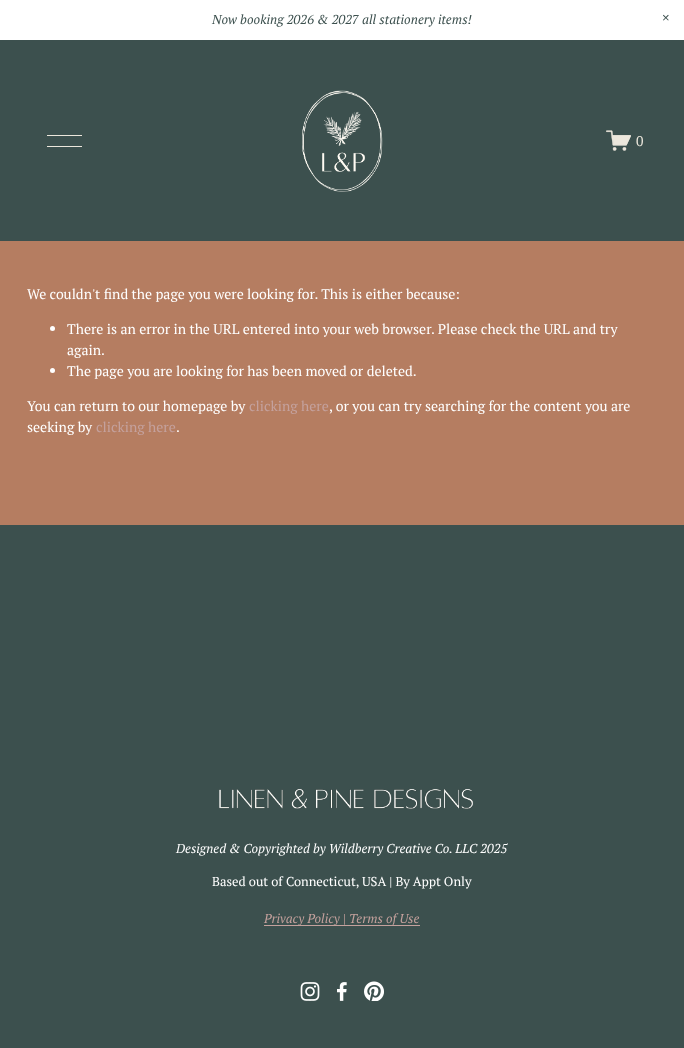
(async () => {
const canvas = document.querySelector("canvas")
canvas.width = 684
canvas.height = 1048
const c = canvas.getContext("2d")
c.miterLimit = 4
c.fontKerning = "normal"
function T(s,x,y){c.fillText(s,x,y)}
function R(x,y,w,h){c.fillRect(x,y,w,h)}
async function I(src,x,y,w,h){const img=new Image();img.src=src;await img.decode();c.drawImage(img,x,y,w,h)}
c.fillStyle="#b57d61"
R(0,0,684,1048)
c.fillStyle="#3c504e"
R(0,40,684,201)
c.fillStyle="#fff"
R(0,0,684,40)
c.font="italic 13px PT Serif"
c.fillStyle="#3c504e"
T("Now booking 2026 & 2027 all stationery items!",212,24)
c.font="13px Liberation Sans"
T("×",662,22)
c.fillStyle="#ece7dc"
R(47,135,35,1)
R(47,146,35,1)
await I("1.png",302,90,81,102)
await I("2.png",606,130,25,21)
c.font="14px PT Serif"
T("0",636,146)
c.fillStyle="#fff"
T("We couldn't find the page you were looking for. This is either because:",27,299)
c.beginPath()
c.arc(52.5,328.5,2.5,0,7)
c.fill()
T("There is an error in the URL entered into your web browser. Please check the URL and try",67,334)
T("again.",67,355)
c.beginPath()
c.arc(52.5,370.5,2.5,0,7)
c.fill()
T("The page you are looking for has been moved or deleted.",67,376)
T("You can return to our homepage by",27,411)
c.fillStyle="#c4a19d"
T("clicking here",249,411)
c.fillStyle="#fff"
T(", or you can try searching for the content you are",329,411)
T("seeking by",27,432)
c.fillStyle="#c4a19d"
T("clicking here",96,432)
c.fillStyle="#fff"
T(".",176,432)
c.fillStyle="#3c504e"
R(0,525,684,523)
await I("3.png",219,789,255,20)
c.font="italic 12.9px PT Serif"
c.fillStyle="#fff"
T("Designed & Copyrighted by Wildberry Creative Co. LLC 2025",176,853)
c.font="12.9px PT Serif"
T("Based out of Connecticut, USA | By Appt Only",212,886)
c.fillStyle="#c4a19d"
R(264,925,156,1)
c.font="italic 12.9px PT Serif"
T("Privacy Policy | Terms of Use",264,923)
await I("4.png",300,982,20,19)
await I("5.png",337,982,10,19)
await I("6.png",364,981,20,20)
})()
